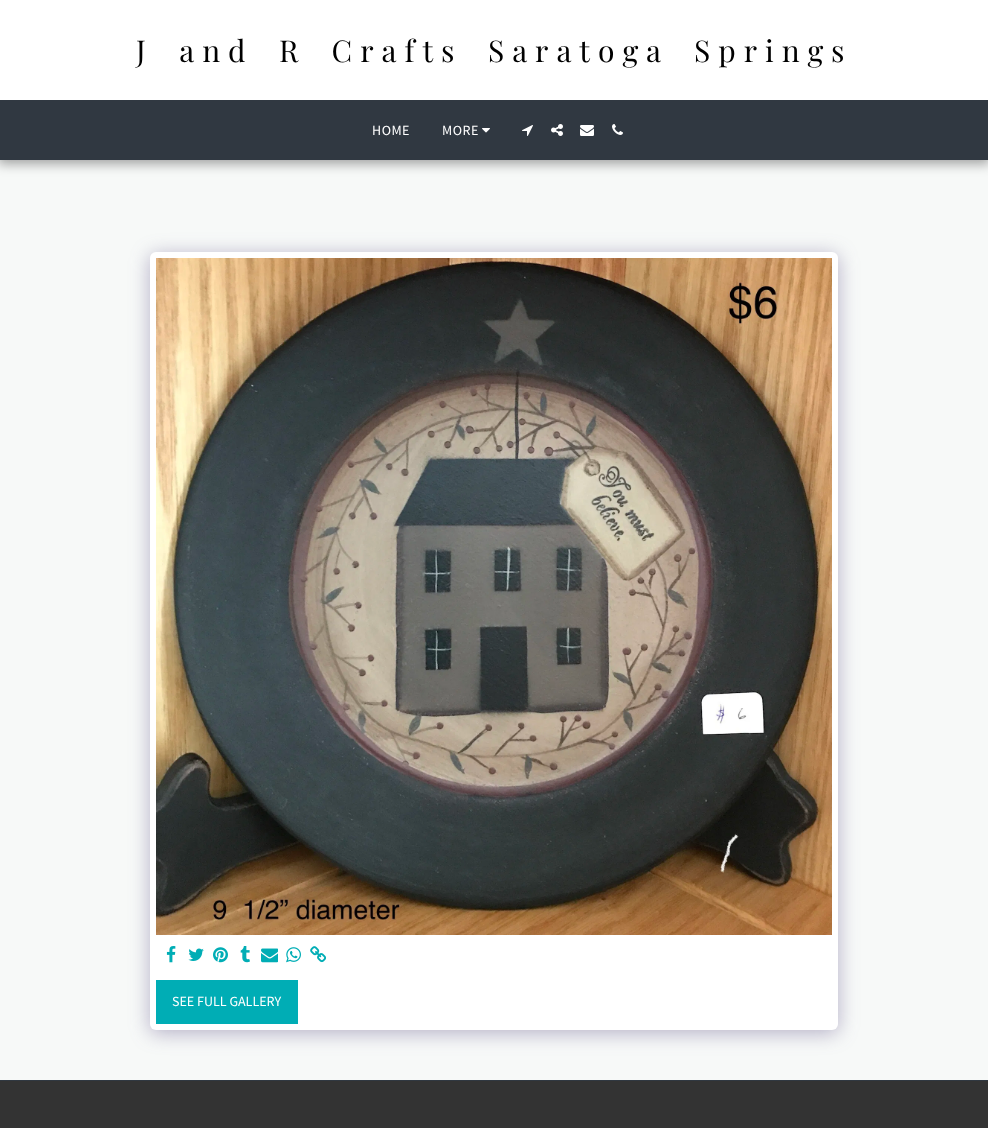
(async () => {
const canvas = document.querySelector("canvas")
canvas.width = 988
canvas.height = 1128
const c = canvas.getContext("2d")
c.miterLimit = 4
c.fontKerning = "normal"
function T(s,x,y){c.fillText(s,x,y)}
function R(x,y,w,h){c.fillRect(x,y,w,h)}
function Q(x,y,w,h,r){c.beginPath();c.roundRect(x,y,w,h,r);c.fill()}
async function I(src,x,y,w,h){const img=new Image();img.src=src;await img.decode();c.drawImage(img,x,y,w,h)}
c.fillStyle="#f7f9f8"
R(0,0,988,1128)
c.fillStyle="#00000059"
c.filter="blur(6px)"
c.beginPath()
c.rect(-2,0,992,164)
c.fill()
c.filter="none"
c.fillStyle="#303841"
R(0,100,988,60)
c.fillStyle="#fff"
R(0,0,988,100)
c.letterSpacing="8px"
c.wordSpacing="10px"
c.font="30px Playfair Display"
c.fillStyle="#000"
T("J and R Crafts Saratoga Springs",136,62)
c.letterSpacing="0.5px"
c.wordSpacing="0px"
c.font="14px Source Sans Pro"
c.fillStyle="#fff"
T("HOME",372,135)
T("MORE",442,135)
await I("1.png",482,128,8,5)
await I("2.png",522,125,11,11)
await I("3.png",551,124,12,12)
await I("4.png",580,125,14,11)
await I("5.png",612,124,11,11)
c.fillStyle="#4d3f7a66"
c.filter="blur(10px)"
c.beginPath()
c.roundRect(150,255,688,778,6)
c.fill()
c.filter="none"
c.fillStyle="#fff"
Q(150,252,688,778,6)
await I("6.png",156,258,676,677)
await I("7.png",166,946,10,17)
await I("8.png",188,948,16,13)
await I("9.png",213,947,15,16)
await I("10.png",240,946,10,17)
await I("11.png",261,948,17,15)
await I("12.png",286,947,15,16)
await I("13.png",310,946,16,17)
c.fillStyle="#00adb5"
R(156,980,142,44)
c.letterSpacing="0px"
c.fillStyle="#fff"
T("SEE FULL GALLERY",172,1006)
c.fillStyle="#333"
R(0,1081,988,47)
c.fillStyle="#303841"
R(0,1080,988,1)
})()
